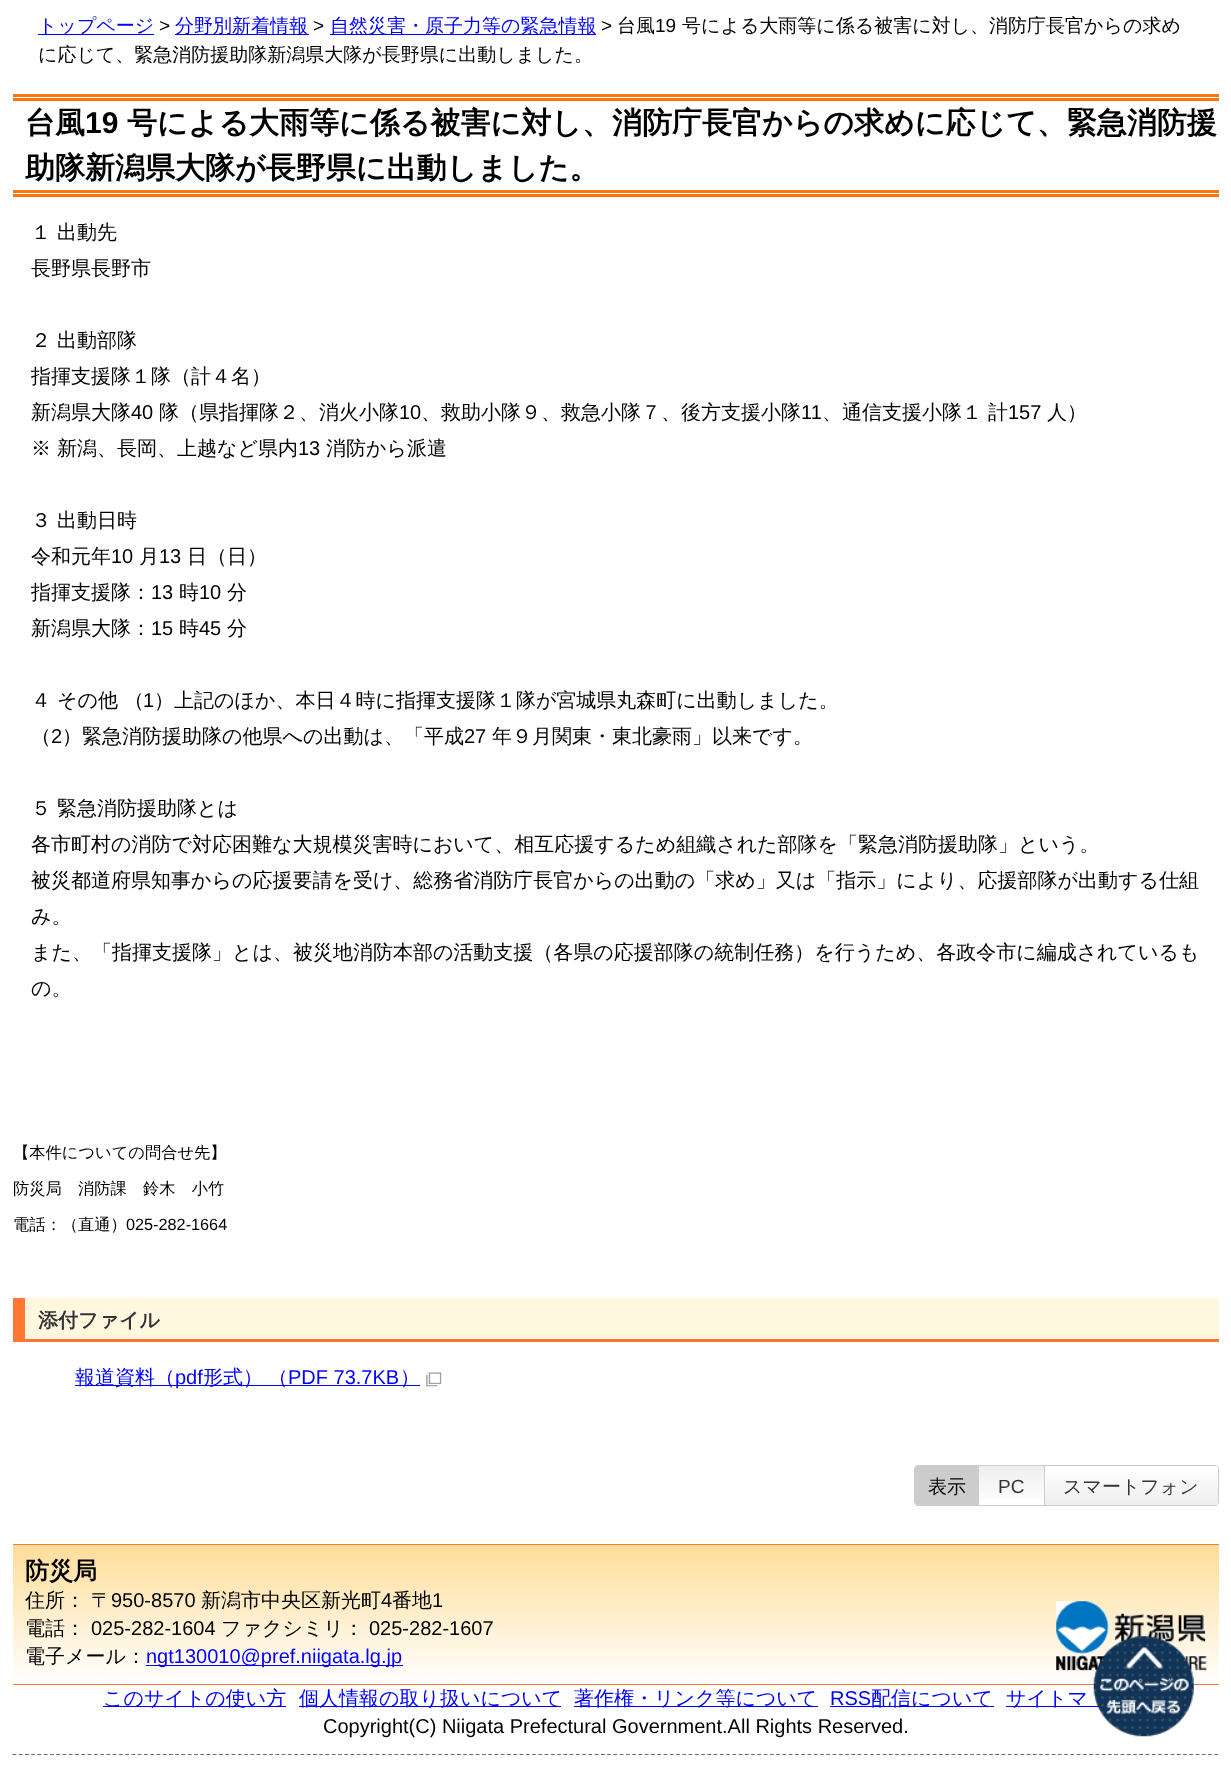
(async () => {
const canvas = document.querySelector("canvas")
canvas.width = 1231
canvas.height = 1767
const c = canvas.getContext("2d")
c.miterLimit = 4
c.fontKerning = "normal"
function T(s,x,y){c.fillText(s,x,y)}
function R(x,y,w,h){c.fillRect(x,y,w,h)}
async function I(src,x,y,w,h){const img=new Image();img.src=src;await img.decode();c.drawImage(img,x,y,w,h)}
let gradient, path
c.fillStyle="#fff"
R(0,0,1231,1767)
c.fillStyle="#00f"
R(38,34,116,1)
c.font="500 19px WenQuanYi Zen Hei"
T("トップページ",38,32)
c.font="19px Liberation Sans"
c.fillStyle="#000"
T(">",159,32)
c.fillStyle="#00f"
R(175,34,134,1)
c.font="500 19px WenQuanYi Zen Hei"
T("分野別新着情報",175,32)
c.font="19px Liberation Sans"
c.fillStyle="#000"
T(">",313,32)
c.fillStyle="#00f"
R(330,34,266,1)
c.font="500 19px WenQuanYi Zen Hei"
T("自然災害・原子力等の緊急情報",330,32)
c.font="19px Liberation Sans"
c.fillStyle="#000"
T(">",601,32)
c.font="500 19px WenQuanYi Zen Hei"
T("台風",617,32)
c.font="19px Liberation Sans"
T("19",655,32)
c.font="500 19px WenQuanYi Zen Hei"
T("号による大雨等に係る被害に対し、消防庁長官からの求め",682,32)
T("に応じて、緊急消防援助隊新潟県大隊が長野県に出動しました。",38,61)
c.fillStyle="#fc750f"
R(13,94,1206,3)
R(13,98,1206,3)
R(13,190,1206,3)
R(13,194,1206,3)
c.font="bold 30px WenQuanYi Zen Hei"
c.fillStyle="#000"
T("台風",25,133)
c.font="bold 30px Liberation Sans"
T("19",85,133)
c.font="bold 30px WenQuanYi Zen Hei"
T("号による大雨等に係る被害に対し、消防庁長官からの求めに応じて、緊急消防援",127,133)
T("助隊新潟県大隊が長野県に出動しました。",25,178)
c.font="500 20px WenQuanYi Zen Hei"
T("１ 出動先",31,239)
T("長野県長野市",31,275)
T("２ 出動部隊",31,347)
T("指揮支援隊１隊（計４名）",31,383)
T("新潟県大隊",31,419)
c.font="20px Liberation Sans"
T("40",131,419)
c.font="500 20px WenQuanYi Zen Hei"
T("隊（県指揮隊２、消火小隊",159,419)
c.font="20px Liberation Sans"
T("10",399,419)
c.font="500 20px WenQuanYi Zen Hei"
T("、救助小隊９、救急小隊７、後方支援小隊",421,419)
c.font="20px Liberation Sans"
T("11",801,419)
c.font="500 20px WenQuanYi Zen Hei"
T("、通信支援小隊１ 計",822,419)
c.font="20px Liberation Sans"
T("157",1008,419)
c.font="500 20px WenQuanYi Zen Hei"
T("人）",1047,419)
T("※ 新潟、長岡、上越など県内",31,455)
c.font="20px Liberation Sans"
T("13",298,455)
c.font="500 20px WenQuanYi Zen Hei"
T("消防から派遣",326,455)
T("３ 出動日時",31,527)
T("令和元年",31,563)
c.font="20px Liberation Sans"
T("10",111,563)
c.font="500 20px WenQuanYi Zen Hei"
T("月",139,563)
c.font="20px Liberation Sans"
T("13",159,563)
c.font="500 20px WenQuanYi Zen Hei"
T("日（日）",187,563)
T("指揮支援隊：",31,599)
c.font="20px Liberation Sans"
T("13",151,599)
c.font="500 20px WenQuanYi Zen Hei"
T("時",179,599)
c.font="20px Liberation Sans"
T("10",199,599)
c.font="500 20px WenQuanYi Zen Hei"
T("分",227,599)
T("新潟県大隊：",31,635)
c.font="20px Liberation Sans"
T("15",151,635)
c.font="500 20px WenQuanYi Zen Hei"
T("時",179,635)
c.font="20px Liberation Sans"
T("45",199,635)
c.font="500 20px WenQuanYi Zen Hei"
T("分",227,635)
T("４ その他 （",31,707)
c.font="20px Liberation Sans"
T("1",143,707)
c.font="500 20px WenQuanYi Zen Hei"
T("）上記のほか、本日４時に指揮支援隊１隊が宮城県丸森町に出動しました。",154,707)
T("（",31,743)
c.font="20px Liberation Sans"
T("2",51,743)
c.font="500 20px WenQuanYi Zen Hei"
T("）緊急消防援助隊の他県への出動は、「平成",62,743)
c.font="20px Liberation Sans"
T("27",464,743)
c.font="500 20px WenQuanYi Zen Hei"
T("年９月関東・東北豪雨」以来です。",492,743)
T("５ 緊急消防援助隊とは",31,815)
T("各市町村の消防で対応困難な大規模災害時において、相互応援するため組織された部隊を「緊急消防援助隊」という。",31,851)
T("被災都道府県知事からの応援要請を受け、総務省消防庁長官からの出動の「求め」又は「指示」により、応援部隊が出動する仕組",31,887)
T("み。",31,923)
T("また、「指揮支援隊」とは、被災地消防本部の活動支援（各県の応援部隊の統制任務）を行うため、各政令市に編成されているも",31,959)
T("の。",31,995)
c.font="500 16.25px WenQuanYi Zen Hei"
T("【本件についての問合せ先】",13,1158)
T("防災局　消防課　鈴木　小竹",13,1194)
T("電話：（直通）",13,1230)
c.font="16.25px Liberation Sans"
T("025-282-1664",126,1230)
c.fillStyle="#fff8de"
R(25,1298,1194,41)
c.fillStyle="#f73"
R(13,1339,1206,3)
R(13,1298,12,41)
c.font="bold 20px WenQuanYi Zen Hei"
c.fillStyle="#333337"
T("添付ファイル",38,1327)
c.fillStyle="#00f"
R(75,1385,345,1)
c.font="500 20px WenQuanYi Zen Hei"
T("報道資料（",75,1384)
c.font="20px Liberation Sans"
T("pdf",175,1384)
c.font="500 20px WenQuanYi Zen Hei"
T("形式）",203,1384)
T("（",268,1384)
c.font="20px Liberation Sans"
T("PDF 73.7KB",288,1384)
c.font="500 20px WenQuanYi Zen Hei"
T("）",400,1384)
await I("1.png",426,1372,16,15)
c.beginPath()
c.roundRect(914.5,1465.5,304,40,3.5)
c.strokeStyle="#ccc"
c.stroke()
c.fillStyle="#ccc"
c.beginPath()
c.roundRect(915,1466,64,39,[2.5,0,0,2.5])
c.fill()
c.font="500 19px WenQuanYi Zen Hei"
c.fillStyle="#000"
T("表示",928,1493)
gradient = c.createLinearGradient(1011,1466,1011,1505)
gradient.addColorStop(0,"#eee")
gradient.addColorStop(1,"#fff")
c.fillStyle = gradient
R(979,1466,65,33)
c.fillStyle="#ccc"
R(1044,1466,1,39)
c.font="19px Liberation Sans"
c.fillStyle="#333337"
T("PC",998,1493)
gradient = c.createLinearGradient(1131,1466,1131,1505)
gradient.addColorStop(0,"#fff")
gradient.addColorStop(1,"#eee")
c.fillStyle = gradient
c.beginPath()
c.roundRect(1045,1466,173,39,[0,2.5,2.5,0])
c.fill()
c.font="500 19px WenQuanYi Zen Hei"
c.fillStyle="#333337"
T("スマートフォン",1063,1493)
gradient = c.createLinearGradient(616,1545,616,1684)
gradient.addColorStop(0,"#fd9")
gradient.addColorStop(1,"#fff")
c.fillStyle = gradient
R(13,1545,1206,136)
c.fillStyle="#f73"
R(13,1684,1206,1)
await I("3.png",1056,1601,151,70)
c.fillStyle="#00f"
R(1006,1706,93,1)
await I("2.png",1093,1636,101,101)
c.fillStyle="#f73"
R(13,1544,1206,1)
c.font="bold 24px WenQuanYi Zen Hei"
c.fillStyle="#000"
T("防災局",25,1579)
c.font="500 20px WenQuanYi Zen Hei"
T("住所： 〒",25,1607)
c.font="20px Liberation Sans"
T("950-8570",111,1607)
c.font="500 20px WenQuanYi Zen Hei"
T("新潟市中央区新光町",201,1607)
c.font="20px Liberation Sans"
T("4",381,1607)
c.font="500 20px WenQuanYi Zen Hei"
T("番地",392,1607)
c.font="20px Liberation Sans"
T("1",432,1607)
c.font="500 20px WenQuanYi Zen Hei"
T("電話：",25,1635)
c.font="20px Liberation Sans"
T("025-282-1604",91,1635)
c.font="500 20px WenQuanYi Zen Hei"
T("ファクシミリ：",221,1635)
c.font="20px Liberation Sans"
T("025-282-1607",369,1635)
c.font="500 20px WenQuanYi Zen Hei"
T("電子メール：",25,1663)
c.fillStyle="#00f"
R(146,1665,257,1)
c.font="20px Liberation Sans"
T("ngt130010@pref.niigata.lg.jp",146,1663)
R(103,1706,183,1)
c.font="500 20px WenQuanYi Zen Hei"
T("このサイトの使い方",103,1705)
R(299,1706,262,1)
T("個人情報の取り扱いについて",299,1705)
R(574,1706,244,1)
T("著作権・リンク等について",574,1705)
c.font="20px Liberation Sans"
T("RSS",830,1705)
R(830,1706,164,1)
c.font="500 20px WenQuanYi Zen Hei"
T("配信について",871,1705)
T("サイトマ",1006,1705)
path = new Path2D("M12.5 1754.5h1206.5")
c.strokeStyle="#696969"
c.lineWidth=1.2
c.setLineDash([3.75,2.51])
c.stroke(path)
c.font="20px Liberation Sans"
c.fillStyle="#000"
T("Copyright(C) Niigata Prefectural Government.All Rights Reserved.",323,1733)
})()
